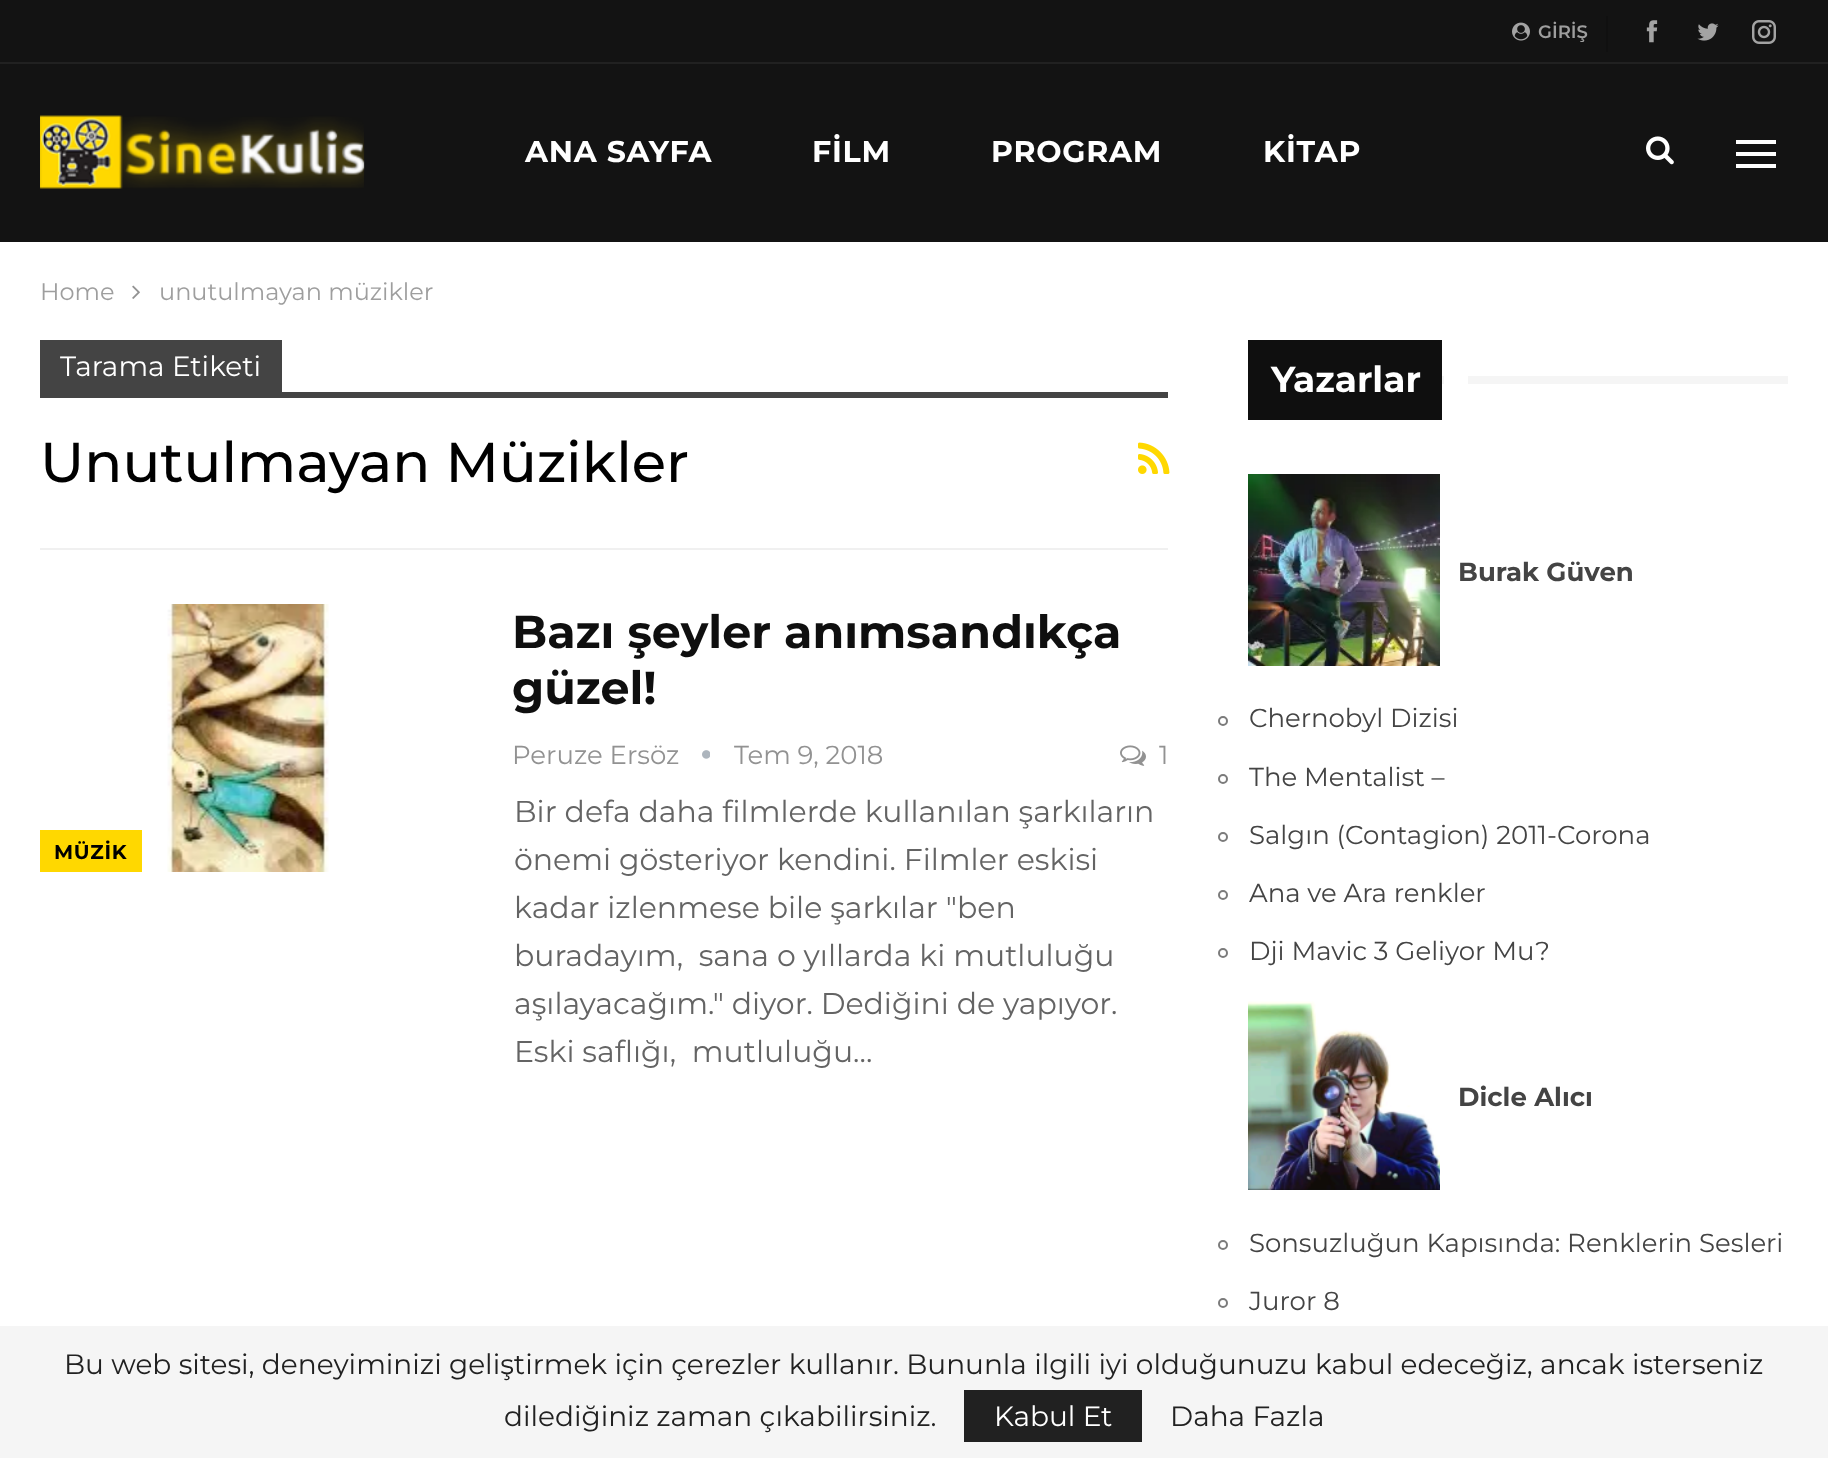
(async () => {
const canvas = document.querySelector("canvas")
canvas.width = 1828
canvas.height = 1458
const c = canvas.getContext("2d")
c.miterLimit = 4
c.fontKerning = "normal"
function T(s,x,y){c.fillText(s,x,y)}
function R(x,y,w,h){c.fillRect(x,y,w,h)}
async function I(src,x,y,w,h){const img=new Image();img.src=src;await img.decode();c.drawImage(img,x,y,w,h)}
c.fillStyle="#fff"
R(0,0,1828,1458)
c.fillStyle="#131313"
R(0,0,1828,242)
c.fillStyle="#212121"
R(0,62,1828,2)
await I("1.png",1512,22,18,19)
c.font="600 18px Montserrat"
c.fillStyle="#9e9e9e"
T("GİRİŞ",1538,38)
c.fillStyle="#101010"
R(1606,16,2,36)
await I("2.png",1646,20,12,23)
await I("3.png",1697,23,22,18)
await I("4.png",1752,20,24,24)
await I("5.png",40,115,325,74)
c.letterSpacing="0.75px"
c.font="bold 30px Montserrat"
c.fillStyle="#fff"
T("ANA SAYFA",525,162)
T("FİLM",812,162)
T("PROGRAM",991,162)
T("KİTAP",1263,162)
await I("6.png",1646,136,28,29)
R(1736,152,40,4)
R(1736,140,40,4)
R(1736,164,40,4)
c.letterSpacing="0px"
c.font="24px Montserrat"
c.fillStyle="#9e9e9e"
T("Home",40,300)
await I("7.png",132,285,8,14)
T("unutulmayan müzikler",159,300)
c.fillStyle="#f0f0f0"
R(40,548,1128,2)
c.fillStyle="#444"
R(40,340,242,52)
c.font="28px Montserrat"
c.fillStyle="#fff"
T("Tarama Etiketi",60,376)
c.fillStyle="#444"
R(40,392,1128,6)
c.font="500 56px Montserrat"
c.fillStyle="#000"
T("Unutulmayan Müzikler",40,482)
await I("8.png",1138,442,32,32)
c.font="bold 46px Montserrat"
c.fillStyle="#0f0f0f"
T("Bazı şeyler anımsandıkça",512,648)
T("güzel!",512,704)
c.font="26px Montserrat"
c.fillStyle="#929292"
T("Peruze Ersöz",512,764)
await I("9.png",702,750,8,9)
T("Tem 9, 2018",734,764)
await I("10.png",1120,745,26,21)
T("1",1159,764)
c.fillStyle="#ffd800"
R(40,830,102,42)
c.letterSpacing="0.75px"
c.font="bold 20px Montserrat"
c.fillStyle="#000"
T("MÜZİK",54,859)
await I("11.png",167,604,162,268)
c.letterSpacing="0px"
c.font="30px Montserrat"
c.fillStyle="#646464"
T("Bir defa daha filmlerde kullanılan şarkıların",514,822)
T("önemi gösteriyor kendini. Filmler eskisi",514,870)
T("kadar izlenmese bile şarkılar \"ben",514,918)
T("buradayım,  sana o yıllarda ki mutluluğu",514,966)
T("aşılayacağım.\" diyor. Dediğini de yapıyor.",514,1014)
T("Eski saflığı,  mutluluğu…",514,1062)
c.fillStyle="#0f0f0f"
R(1248,340,194,80)
c.font="bold 36px Montserrat"
c.fillStyle="#fff"
T("Yazarlar",1271,392)
c.fillStyle="#f5f5f5"
R(1442,376,346,8)
c.fillStyle="#fff"
R(1444,376,24,8)
await I("12.png",1248,474,192,192)
c.font="bold 26px Montserrat"
c.fillStyle="#444"
T("Burak Güven",1458,581)
c.beginPath()
c.arc(1223,721,4,0,7)
c.strokeStyle="#7b7b7b"
c.lineWidth=2
c.stroke()
c.font="26px Montserrat"
T("Chernobyl Dizisi",1249,727)
c.beginPath()
c.arc(1223,779,4,0,7)
c.stroke()
T("The Mentalist –",1249,786)
c.beginPath()
c.arc(1223,837,4,0,7)
c.stroke()
T("Salgın (Contagion) 2011-Corona",1249,844)
c.beginPath()
c.arc(1223,895,4,0,7)
c.stroke()
T("Ana ve Ara renkler",1249,902)
c.beginPath()
c.arc(1223,953,4,0,7)
c.stroke()
T("Dji Mavic 3 Geliyor Mu?",1249,960)
await I("13.png",1248,1001,192,189)
c.font="bold 26px Montserrat"
T("Dicle Alıcı",1458,1106)
c.beginPath()
c.arc(1223,1245,4,0,7)
c.stroke()
c.font="26px Montserrat"
T("Sonsuzluğun Kapısında: Renklerin Sesleri",1249,1252)
c.beginPath()
c.arc(1223,1303,4,0,7)
c.stroke()
T("Juror 8",1249,1310)
c.fillStyle="#f5f5f5"
R(0,1326,1828,132)
c.font="28px Montserrat"
c.fillStyle="#212121"
T("Bu web sitesi, deneyiminizi geliştirmek için çerezler kullanır. Bununla ilgili iyi olduğunuzu kabul edeceğiz, ancak isterseniz",64,1374)
T("dilediğiniz zaman çıkabilirsiniz.",504,1426)
R(964,1390,178,52)
c.fillStyle="#fff"
T("Kabul Et",994,1426)
c.fillStyle="#212121"
T("Daha Fazla",1170,1426)
})()
